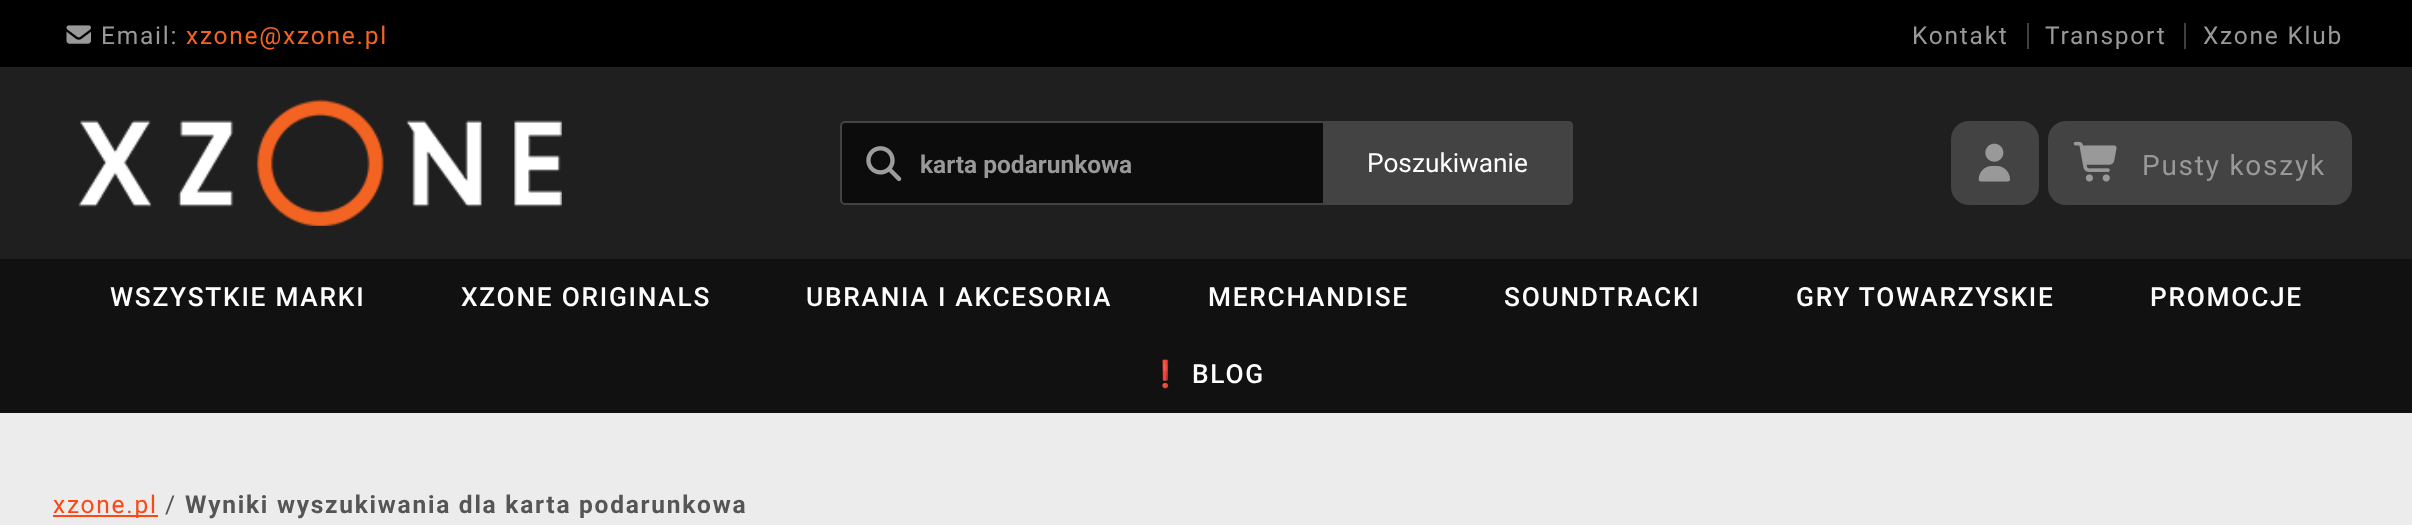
(async () => {
const canvas = document.querySelector("canvas")
canvas.width = 2412
canvas.height = 525
const c = canvas.getContext("2d")
c.miterLimit = 4
c.fontKerning = "normal"
function T(s,x,y){c.fillText(s,x,y)}
function R(x,y,w,h){c.fillRect(x,y,w,h)}
function Q(x,y,w,h,r){c.beginPath();c.roundRect(x,y,w,h,r);c.fill()}
async function I(src,x,y,w,h){const img=new Image();img.src=src;await img.decode();c.drawImage(img,x,y,w,h)}
let path
c.fillStyle="#ececec"
R(0,0,2412,525)
c.fillStyle="#000"
R(0,0,2412,67)
await I("1.png",66,25,25,19)
c.letterSpacing="1.75px"
c.font="24.5px Roboto"
c.fillStyle="#999"
T("Email:",101,44)
c.fillStyle="#f36422"
T("xzone@xzone.pl",186,44)
c.fillStyle="#404040"
R(2027,23,2,26)
c.fillStyle="#999"
T("Kontakt",1912,44)
c.fillStyle="#404040"
R(2184,23,2,26)
c.fillStyle="#999"
T("Transport",2045,44)
T("Xzone Klub",2203,44)
c.fillStyle="#1f1f1f"
R(0,67,2412,192)
await I("2.png",78,99,484,127)
c.fillStyle="#0c0c0c"
c.beginPath()
c.roundRect(841,122,731,82,4)
c.fill()
c.strokeStyle="#434343"
c.lineWidth=2
c.stroke()
await I("3.png",866,146,36,36)
c.letterSpacing="0px"
c.font="bold 24.5px Roboto"
c.fillStyle="#999"
T("karta podarunkowa",920,173)
c.fillStyle="#434343"
c.beginPath()
c.roundRect(1323,121,250,82,[0,5,5,0])
c.fill()
path = new Path2D("M1323 121h245c3 0 5 2 5 5v72c0 3-2 5-5 5h-245zm0 1h245c2 0 4 2 4 4v72c0 2-2 3-4 3h-245z")
c.fill(path,"evenodd")
c.font="26.25px Roboto"
c.fillStyle="#fff"
T("Poszukiwanie",1367,172)
c.fillStyle="#434343"
Q(1951,121,88,84,18)
await I("4.png",1978,143,32,39)
Q(2048,121,304,84,18)
await I("5.png",2073,141,44,41)
c.letterSpacing="1.75px"
c.font="28px Roboto"
c.fillStyle="#999"
T("Pusty koszyk",2142,175)
c.fillStyle="#111"
R(0,259,2412,154)
c.font="500 26.25px Roboto"
c.fillStyle="#fff"
T("WSZYSTKIE MARKI",110,306)
T("XZONE ORIGINALS",461,306)
T("UBRANIA I AKCESORIA",806,306)
T("MERCHANDISE",1208,306)
T("SOUNDTRACKI",1504,306)
T("GRY TOWARZYSKIE",1796,306)
T("PROMOCJE",2150,306)
c.font="26.25px Noto Color Emoji"
T("❗",1149,383)
c.font="500 26.25px Roboto"
T("BLOG",1192,383)
c.fillStyle="#ff4614"
R(53,515,105,2)
c.font="24.5px Roboto"
T("xzone.pl",53,513)
c.fillStyle="#555"
T("/",165,513)
c.font="bold 24.5px Roboto"
T("Wyniki wyszukiwania dla karta podarunkowa",185,513)
})()
